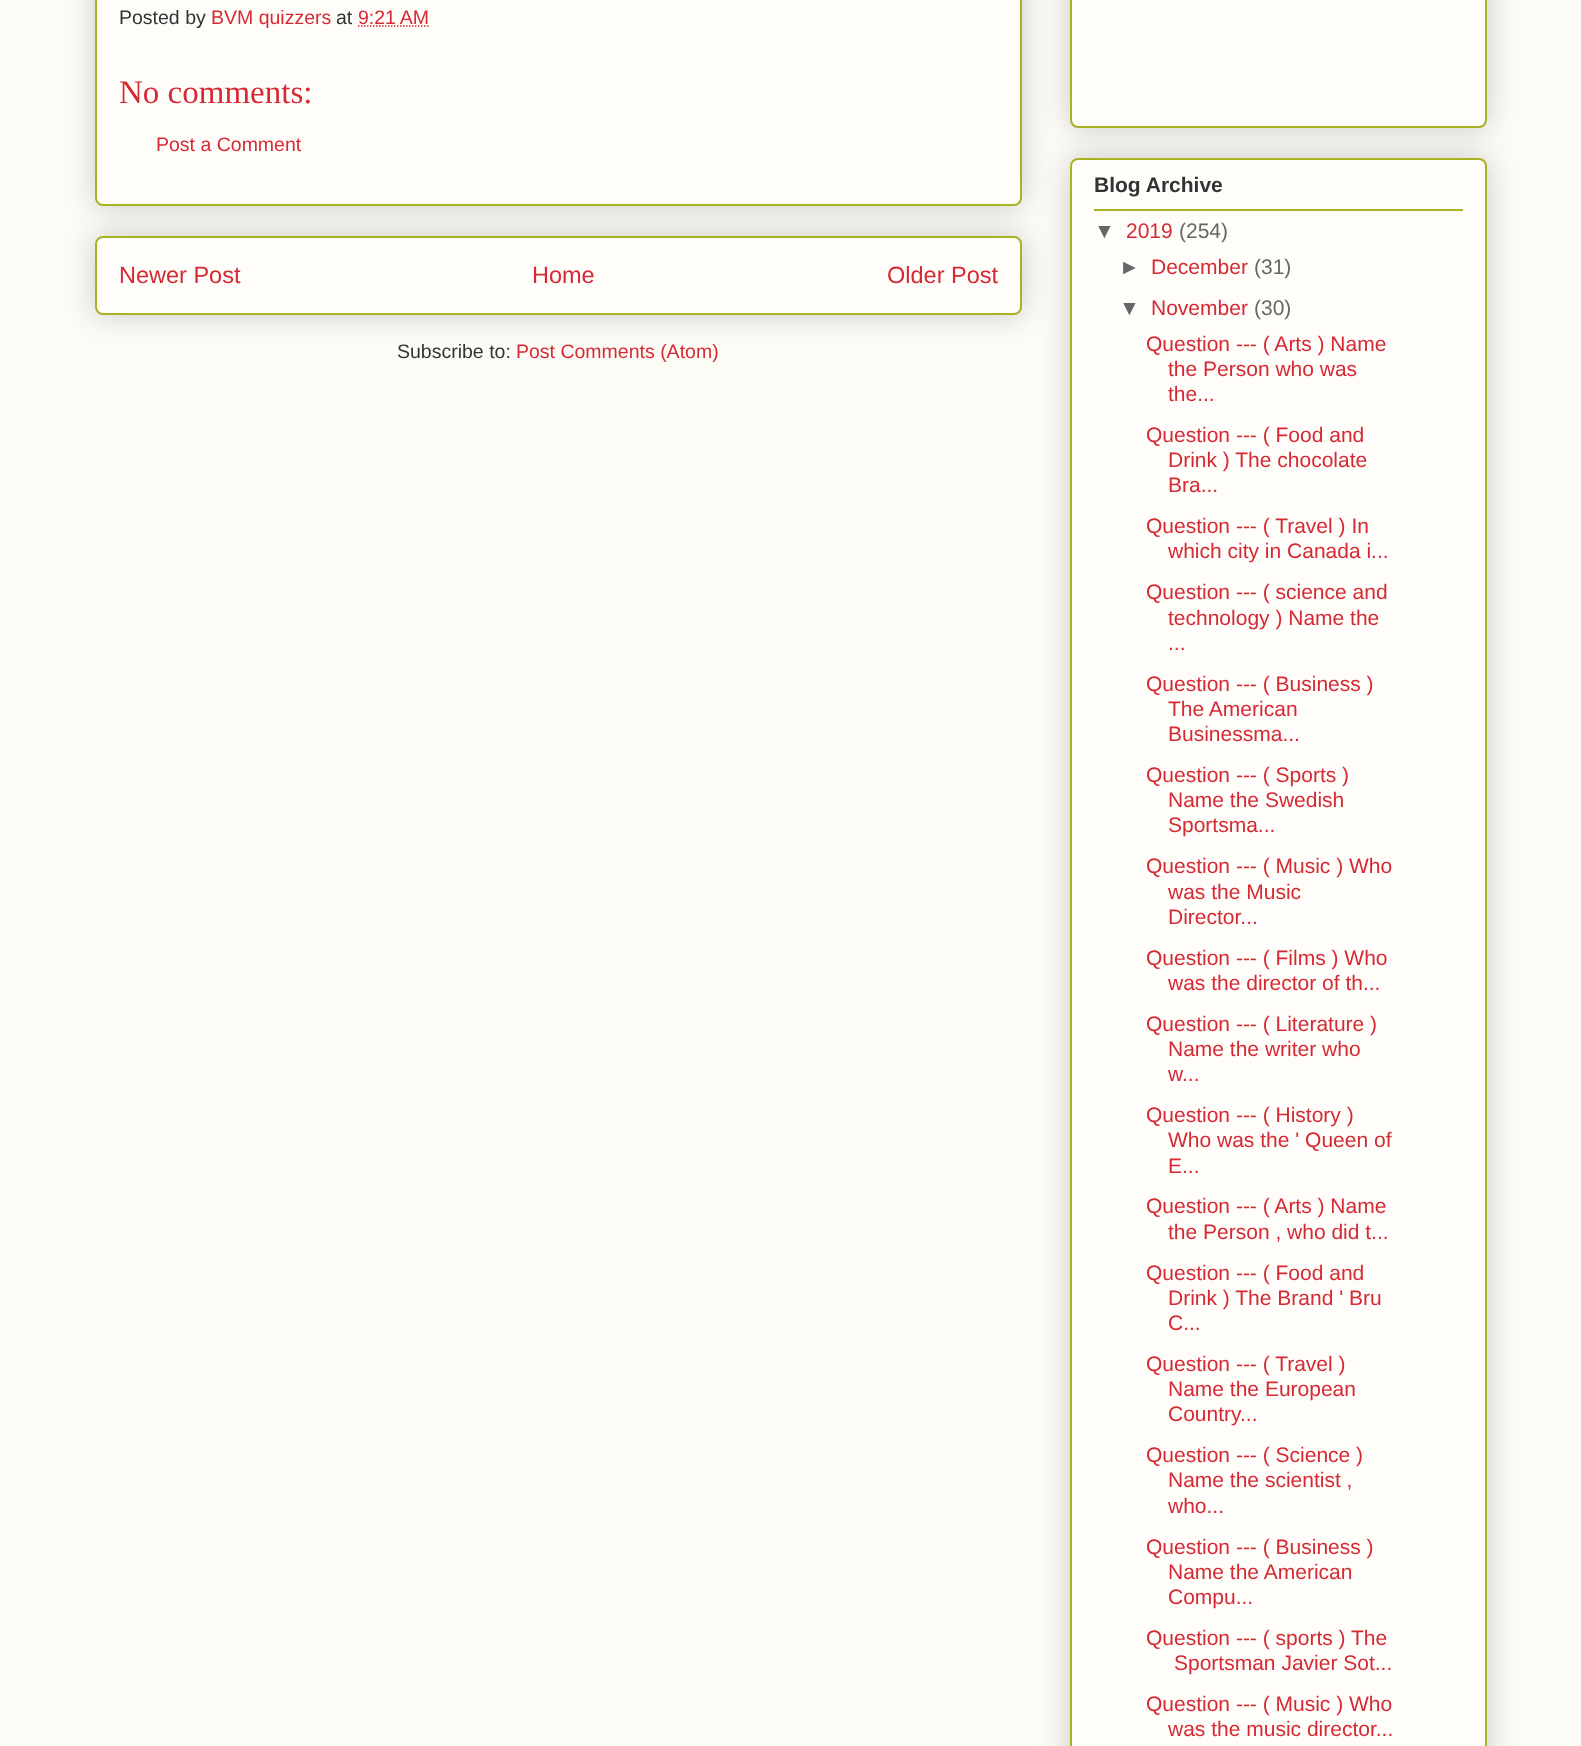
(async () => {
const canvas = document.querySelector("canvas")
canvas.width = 1581
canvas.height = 1746
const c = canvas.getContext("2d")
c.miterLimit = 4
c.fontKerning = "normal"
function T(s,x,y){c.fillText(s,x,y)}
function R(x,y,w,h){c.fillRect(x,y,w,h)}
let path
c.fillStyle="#fcfbf5"
R(0,0,1581,1746)
c.fillStyle="#00000033"
c.filter="blur(15px)"
c.beginPath()
c.roundRect(95,236,927,79,8)
c.fill()
c.filter="none"
c.fillStyle="#fefdfa"
c.beginPath()
c.roundRect(96,237,925,77,7)
c.fill()
c.strokeStyle="#aab123"
c.lineWidth=2
c.stroke()
c.fillStyle="#00000033"
c.filter="blur(15px)"
c.beginPath()
c.roundRect(95,-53,927,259,8)
c.fill()
c.filter="none"
c.fillStyle="#fefdfa"
c.beginPath()
c.roundRect(96,-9,925,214,7)
c.fill()
c.stroke()
c.font="19.5px Liberation Sans"
c.fillStyle="#333"
T("Posted by",119,24)
c.fillStyle="#d52a33"
T("BVM quizzers",211,24)
c.fillStyle="#333"
T("at",336,24)
c.fillStyle="#d52a33"
T("9:21 AM",358,24)
path = new Path2D("M358 26h71")
c.strokeStyle="#d52a33"
c.lineWidth=1.5
c.setLineDash([1.5,1.5])
c.stroke(path)
c.font="33px Liberation Serif"
T("No comments:",119,103)
c.font="19.5px Liberation Sans"
T("Post a Comment",156,151)
c.font="23.5px Liberation Sans"
T("Newer Post",119,283)
T("Home",532,283)
T("Older Post",887,283)
c.font="19.5px Liberation Sans"
c.fillStyle="#333"
T("Subscribe to:",397,358)
c.fillStyle="#d52a33"
T("Post Comments (Atom)",516,358)
c.fillStyle="#00000033"
c.filter="blur(15px)"
c.beginPath()
c.roundRect(1070,-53,417,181,8)
c.fill()
c.filter="none"
c.fillStyle="#fefdfa"
c.beginPath()
c.roundRect(1071,-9,415,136,7)
c.fill()
c.strokeStyle="#aab123"
c.lineWidth=2
c.setLineDash([])
c.stroke()
c.fillStyle="#00000033"
c.filter="blur(15px)"
c.beginPath()
c.roundRect(1070,158,417,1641,8)
c.fill()
c.filter="none"
c.fillStyle="#fefdfa"
c.beginPath()
c.roundRect(1071,159,415,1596,7)
c.fill()
c.stroke()
c.font="bold 21px Liberation Sans"
c.fillStyle="#333"
T("Blog Archive",1094,192)
c.fillStyle="#aab123"
R(1094,209,369,2)
c.font="21px Liberation Sans"
c.fillStyle="#666"
T("▼",1094,238)
c.fillStyle="#d52a33"
T("2019",1126,238)
c.fillStyle="#666"
T("(254)",1179,238)
T("►",1119,274)
c.fillStyle="#d52a33"
T("December",1151,274)
c.fillStyle="#666"
T("(31)",1254,274)
T("▼",1119,315)
c.fillStyle="#d52a33"
T("November",1151,315)
c.fillStyle="#666"
T("(30)",1254,315)
c.fillStyle="#d52a33"
T("Question --- ( Arts ) Name",1146,351)
T("the Person who was",1168,376)
T("the...",1168,401)
T("Question --- ( Food and",1146,442)
T("Drink ) The chocolate",1168,467)
T("Bra...",1168,492)
T("Question --- ( Travel ) In",1146,533)
T("which city in Canada i...",1168,558)
T("Question --- ( science and",1146,599)
T("technology ) Name the",1168,625)
T("...",1168,650)
T("Question --- ( Business )",1146,691)
T("The American",1168,716)
T("Businessma...",1168,741)
T("Question --- ( Sports )",1146,782)
T("Name the Swedish",1168,807)
T("Sportsma...",1168,832)
T("Question --- ( Music ) Who",1146,873)
T("was the Music",1168,899)
T("Director...",1168,924)
T("Question --- ( Films ) Who",1146,965)
T("was the director of th...",1168,990)
T("Question --- ( Literature )",1146,1031)
T("Name the writer who",1168,1056)
T("w...",1168,1081)
T("Question --- ( History )",1146,1122)
T("Who was the ' Queen of",1168,1147)
T("E...",1168,1173)
T("Question --- ( Arts ) Name",1146,1213)
T("the Person , who did t...",1168,1239)
T("Question --- ( Food and",1146,1280)
T("Drink ) The Brand ' Bru",1168,1305)
T("C...",1168,1330)
T("Question --- ( Travel )",1146,1371)
T("Name the European",1168,1396)
T("Country...",1168,1421)
T("Question --- ( Science )",1146,1462)
T("Name the scientist ,",1168,1487)
T("who...",1168,1513)
T("Question --- ( Business )",1146,1554)
T("Name the American",1168,1579)
T("Compu...",1168,1604)
T("Question --- ( sports ) The",1146,1645)
T("Sportsman Javier Sot...",1174,1670)
T("Question --- ( Music ) Who",1146,1711)
T("was the music director...",1168,1736)
})()
